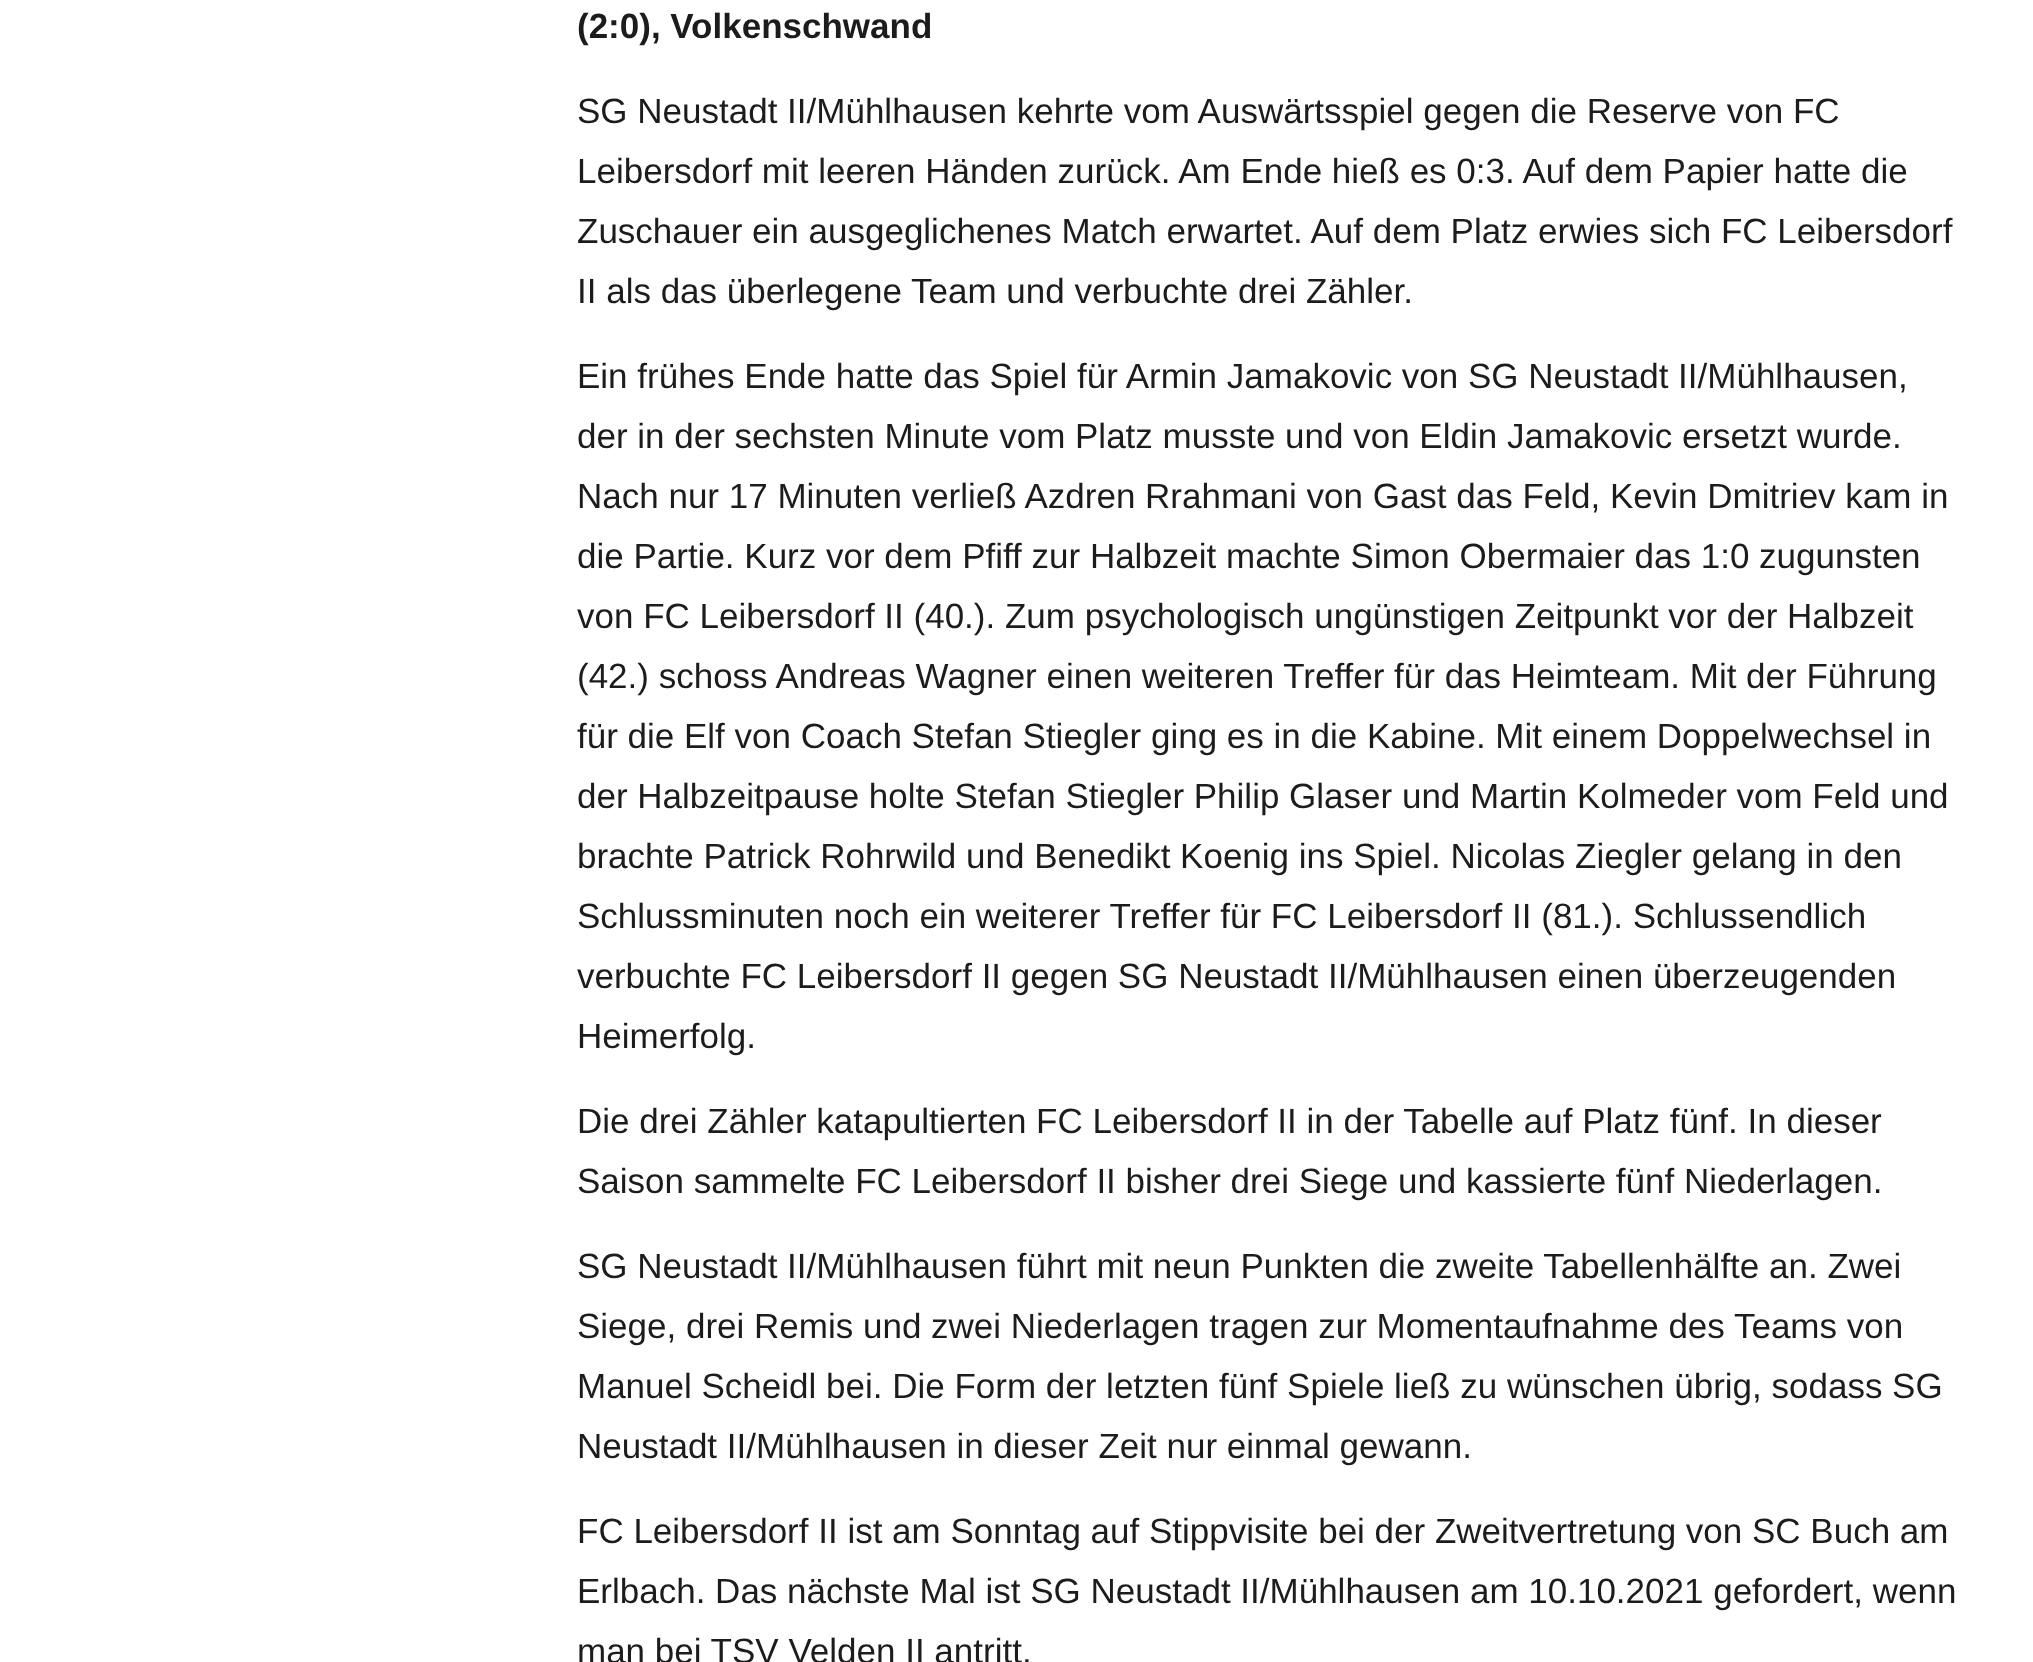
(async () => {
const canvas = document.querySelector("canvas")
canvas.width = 2033
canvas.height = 1662
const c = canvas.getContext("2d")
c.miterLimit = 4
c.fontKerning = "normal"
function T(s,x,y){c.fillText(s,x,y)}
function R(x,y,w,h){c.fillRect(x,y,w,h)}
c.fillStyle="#fff"
R(0,0,2033,1662)
c.font="bold 35px Liberation Sans"
c.fillStyle="#1c1c1c"
T("(2:0), Volkenschwand",577,38)
c.font="35px Liberation Sans"
T("SG Neustadt II/Mühlhausen kehrte vom Auswärtsspiel gegen die Reserve von FC",577,123)
T("Leibersdorf mit leeren Händen zurück. Am Ende hieß es 0:3. Auf dem Papier hatte die",577,183)
T("Zuschauer ein ausgeglichenes Match erwartet. Auf dem Platz erwies sich FC Leibersdorf",577,243)
T("II als das überlegene Team und verbuchte drei Zähler.",577,303)
T("Ein frühes Ende hatte das Spiel für Armin Jamakovic von SG Neustadt II/Mühlhausen,",577,388)
T("der in der sechsten Minute vom Platz musste und von Eldin Jamakovic ersetzt wurde.",577,448)
T("Nach nur 17 Minuten verließ Azdren Rrahmani von Gast das Feld, Kevin Dmitriev kam in",577,508)
T("die Partie. Kurz vor dem Pfiff zur Halbzeit machte Simon Obermaier das 1:0 zugunsten",577,568)
T("von FC Leibersdorf II (40.). Zum psychologisch ungünstigen Zeitpunkt vor der Halbzeit",577,628)
T("(42.) schoss Andreas Wagner einen weiteren Treffer für das Heimteam. Mit der Führung",577,688)
T("für die Elf von Coach Stefan Stiegler ging es in die Kabine. Mit einem Doppelwechsel in",577,748)
T("der Halbzeitpause holte Stefan Stiegler Philip Glaser und Martin Kolmeder vom Feld und",577,808)
T("brachte Patrick Rohrwild und Benedikt Koenig ins Spiel. Nicolas Ziegler gelang in den",577,868)
T("Schlussminuten noch ein weiterer Treffer für FC Leibersdorf II (81.). Schlussendlich",577,928)
T("verbuchte FC Leibersdorf II gegen SG Neustadt II/Mühlhausen einen überzeugenden",577,988)
T("Heimerfolg.",577,1048)
T("Die drei Zähler katapultierten FC Leibersdorf II in der Tabelle auf Platz fünf. In dieser",577,1133)
T("Saison sammelte FC Leibersdorf II bisher drei Siege und kassierte fünf Niederlagen.",577,1193)
T("SG Neustadt II/Mühlhausen führt mit neun Punkten die zweite Tabellenhälfte an. Zwei",577,1278)
T("Siege, drei Remis und zwei Niederlagen tragen zur Momentaufnahme des Teams von",577,1338)
T("Manuel Scheidl bei. Die Form der letzten fünf Spiele ließ zu wünschen übrig, sodass SG",577,1398)
T("Neustadt II/Mühlhausen in dieser Zeit nur einmal gewann.",577,1458)
T("FC Leibersdorf II ist am Sonntag auf Stippvisite bei der Zweitvertretung von SC Buch am",577,1543)
T("Erlbach. Das nächste Mal ist SG Neustadt II/Mühlhausen am 10.10.2021 gefordert, wenn",577,1603)
T("man bei TSV Velden II antritt.",577,1663)
})()
